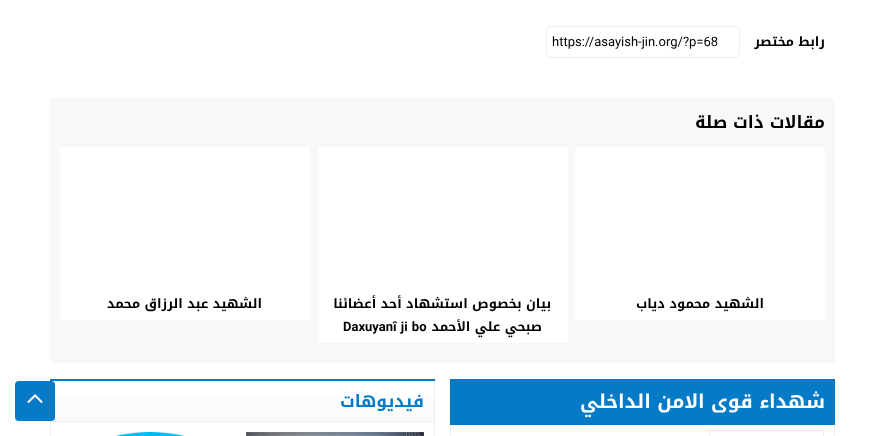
(async () => {
const canvas = document.querySelector("canvas")
canvas.width = 885
canvas.height = 436
const c = canvas.getContext("2d")
c.miterLimit = 4
c.fontKerning = "normal"
function T(s,x,y){c.fillText(s,x,y)}
function R(x,y,w,h){c.fillRect(x,y,w,h)}
function Q(x,y,w,h,r){c.beginPath();c.roundRect(x,y,w,h,r);c.fill()}
async function I(src,x,y,w,h){const img=new Image();img.src=src;await img.decode();c.drawImage(img,x,y,w,h)}
let gradient
c.fillStyle="#fff"
R(0,0,885,436)
c.direction="rtl"
c.font="bold 13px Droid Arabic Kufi"
c.fillStyle="#000"
T("رابط مختصر",825,46)
c.beginPath()
c.roundRect(546.5,26.5,193,31,4.5)
c.strokeStyle="#e9edf0"
c.stroke()
c.direction="ltr"
c.font="13px Roboto"
T("https://asayish-jin.org/?p=68",552,46)
c.fillStyle="#f7f8f9"
R(50,98,785,265)
c.direction="rtl"
c.font="bold 17px Droid Arabic Kufi"
c.fillStyle="#000"
T("مقالات ذات صلة",825,128)
c.fillStyle="#fff"
R(575,147,250,173)
c.font="bold 13px Droid Arabic Kufi"
c.fillStyle="#000"
T("الشهيد محمود دياب",764,308)
c.fillStyle="#fff"
R(318,147,250,196)
c.fillStyle="#000"
T("بيان بخصوص استشهاد أحد أعضائنا",551,308)
T("صبحي علي الأحمد",542,331)
c.wordSpacing="1px"
c.direction="ltr"
c.font="bold 13px Roboto"
T("Daxuyanî ji bo",343,331)
c.fillStyle="#fff"
R(60,147,250,173)
c.wordSpacing="0px"
c.direction="rtl"
c.font="bold 13px Droid Arabic Kufi"
c.fillStyle="#000"
T("الشهيد عبد الرزاق محمد",262,308)
c.fillStyle="#057bc7"
R(450,379,385,46)
c.font="bold 19px Droid Arabic Kufi"
c.fillStyle="#fff"
T("شهداء قوى الامن الداخلي",825,408)
c.fillStyle="#e9edf0"
R(834,425,1,11)
R(450,425,1,11)
R(709,430,115,1)
R(823,430,1,6)
R(709,430,1,6)
c.fillStyle="#057bc7"
R(50,379,385,2)
c.fillStyle="#e9edf0"
R(434,381,1,55)
R(50,422,1,14)
await I("1.png",246,432,178,4)
await I("2.png",116,432,68,4)
gradient = c.createLinearGradient(243,381,243,421)
gradient.addColorStop(0,"#fff")
gradient.addColorStop(1,"#f9f9f9")
c.fillStyle = gradient
R(51,398,383,23)
c.fillStyle="#e9edf0"
R(50,421,385,1)
c.font="bold 17px Droid Arabic Kufi"
c.fillStyle="#057bc7"
T("فيديوهات",424,407)
Q(15,381,40,40,4)
await I("3.png",27,394,16,10)
})()
